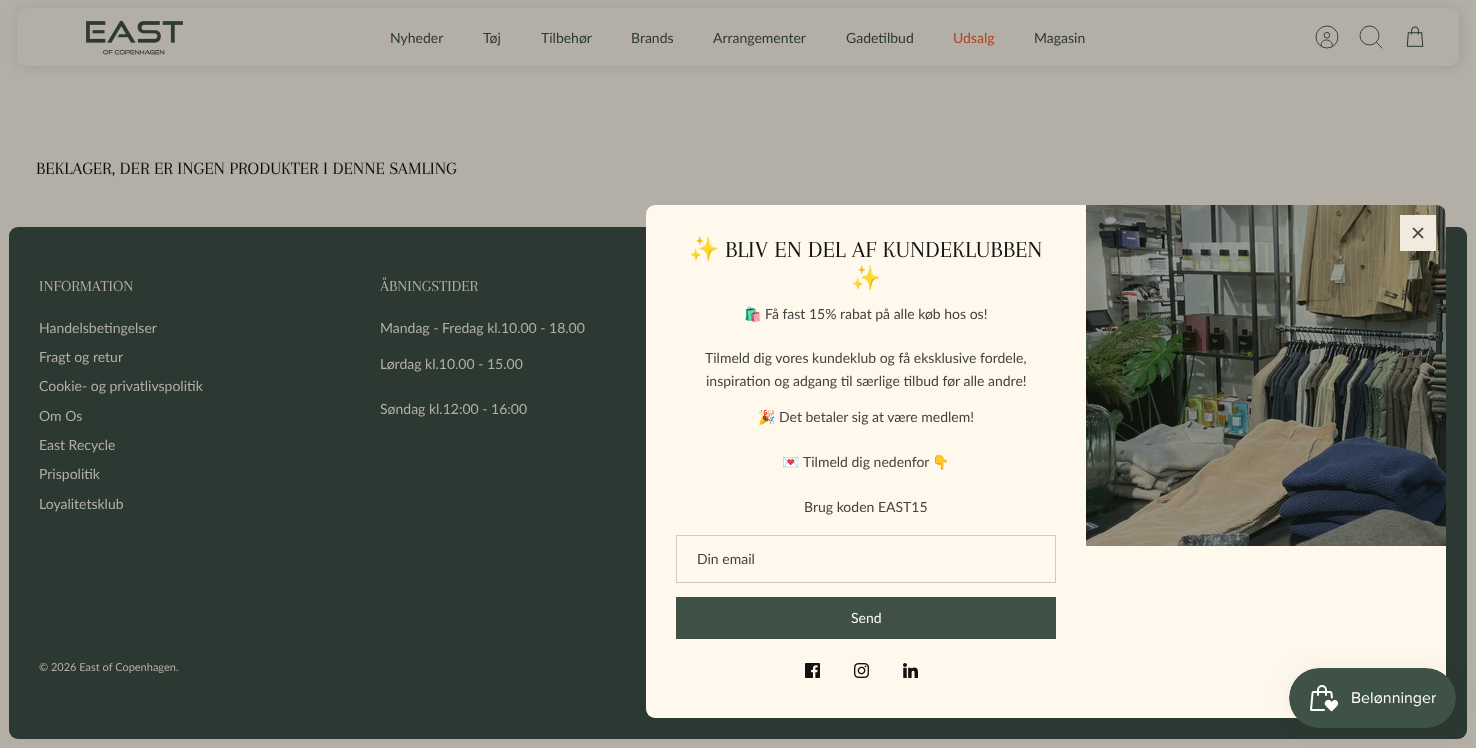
(async () => {
const canvas = document.querySelector("canvas")
canvas.width = 1476
canvas.height = 748
const c = canvas.getContext("2d")
c.miterLimit = 4
c.fontKerning = "normal"
function T(s,x,y){c.fillText(s,x,y)}
function R(x,y,w,h){c.fillRect(x,y,w,h)}
function Q(x,y,w,h,r){c.beginPath();c.roundRect(x,y,w,h,r);c.fill()}
async function I(src,x,y,w,h){const img=new Image();img.src=src;await img.decode();c.drawImage(img,x,y,w,h)}
let path
c.fillStyle="#b3aea6"
R(0,0,1476,748)
c.fillStyle="#0000001a"
c.filter="blur(6px)"
c.beginPath()
c.roundRect(18,9,1442,58,9)
c.fill()
c.filter="none"
c.fillStyle="#b3aea6"
Q(17,8,1442,58,9)
await I("1.png",86,20,97,35)
c.font="14px Lato"
c.fillStyle="#2c3932"
T("Nyheder",390,43)
T("Tøj",483,43)
T("Tilbehør",541,43)
T("Brands",631,43)
T("Arrangementer",713,43)
T("Gadetilbud",846,43)
c.fillStyle="#ac4520"
T("Udsalg",953,43)
c.fillStyle="#2c3932"
T("Magasin",1034,43)
path = new Path2D("M1332 47c2.5-9-13-9.5-10.5-.5")
c.strokeStyle="#2c3932"
c.lineWidth=0.9
c.stroke(path)
c.beginPath()
c.arc(1326.9,35.2,2.8,0,7)
c.stroke()
c.beginPath()
c.arc(1327,37,11,0,7)
c.stroke()
c.beginPath()
c.arc(1369.5,35.5,9.5,0,7)
c.stroke()
path = new Path2D("M1376.5 42.5l5.5 5.5")
c.lineCap="square"
c.stroke(path)
await I("2.png",1406,26,18,21)
c.font="18px Arapey"
c.fillStyle="#0e0e0e"
T("BEKLAGER, DER ER INGEN PRODUKTER I DENNE SAMLING",36,174)
c.fillStyle="#2c3932"
Q(9,227,1458,512,9)
c.font="16px Arapey"
c.fillStyle="#b3aea6"
T("INFORMATION",39,291)
c.font="14px Lato"
T("Handelsbetingelser",39,333)
T("Fragt og retur",39,362)
T("Cookie- og privatlivspolitik",39,391)
T("Om Os",39,421)
T("East Recycle",39,450)
T("Prispolitik",39,479)
T("Loyalitetsklub",39,509)
c.font="16px Arapey"
T("ÅBNINGSTIDER",380,291)
c.font="14px Lato"
T("Mandag - Fredag kl.10.00 - 18.00",380,333)
T("Lørdag kl.10.00 - 15.00",380,369)
T("Søndag kl.12:00 - 16:00",380,414)
c.font="11px Lato"
T("© 2026 East of Copenhagen.",39,671)
c.fillStyle="#fff9ed"
Q(646,205,800,513,9)
c.font="24px Noto Color Emoji"
c.fillStyle="#141414"
T("✨",689,257)
c.font="24px Arapey"
T("BLIV EN DEL AF KUNDEKLUBBEN",725,257)
c.font="24px Noto Color Emoji"
T("✨",851,286)
c.font="14px Noto Color Emoji"
c.fillStyle="#43423f"
T("🛍️",744,319)
c.font="14px Lato"
T("Få fast 15% rabat på alle køb hos os!",765,319)
T("Tilmeld dig vores kundeklub og få eksklusive fordele,",705,363)
T("inspiration og adgang til særlige tilbud før alle andre!",706,386)
c.font="14px Noto Color Emoji"
T("🎉",758,422)
c.font="14px Lato"
T("Det betaler sig at være medlem!",779,422)
c.font="14px Noto Color Emoji"
T("💌",782,467)
c.font="14px Lato"
T("Tilmeld dig nedenfor",803,467)
c.font="14px Noto Color Emoji"
T("👇",932,467)
c.font="14px Lato"
T("Brug koden EAST15",804,512)
c.strokeStyle="#d0cbc2"
c.lineWidth=1
c.strokeRect(676.5,535.5,379,47)
T("Din email",697,564)
c.fillStyle="#3f5147"
R(676,597,380,42)
c.fillStyle="#fff9ed"
T("Send",851,623)
await I("3.png",805,663,15,15)
await I("4.png",854,663,15,15)
await I("5.png",903,663,15,15)
await I("6.png",1086,205,360,341)
c.fillStyle="#f0eadf"
R(1400,215,36,36)
await I("7.png",1412,227,12,12)
c.fillStyle="#0000000d"
c.filter="blur(12.5px)"
c.beginPath()
c.roundRect(1289,668,167,60,30)
c.fill()
c.filter="none"
await I("8.png",1289,668,167,60)
})()
